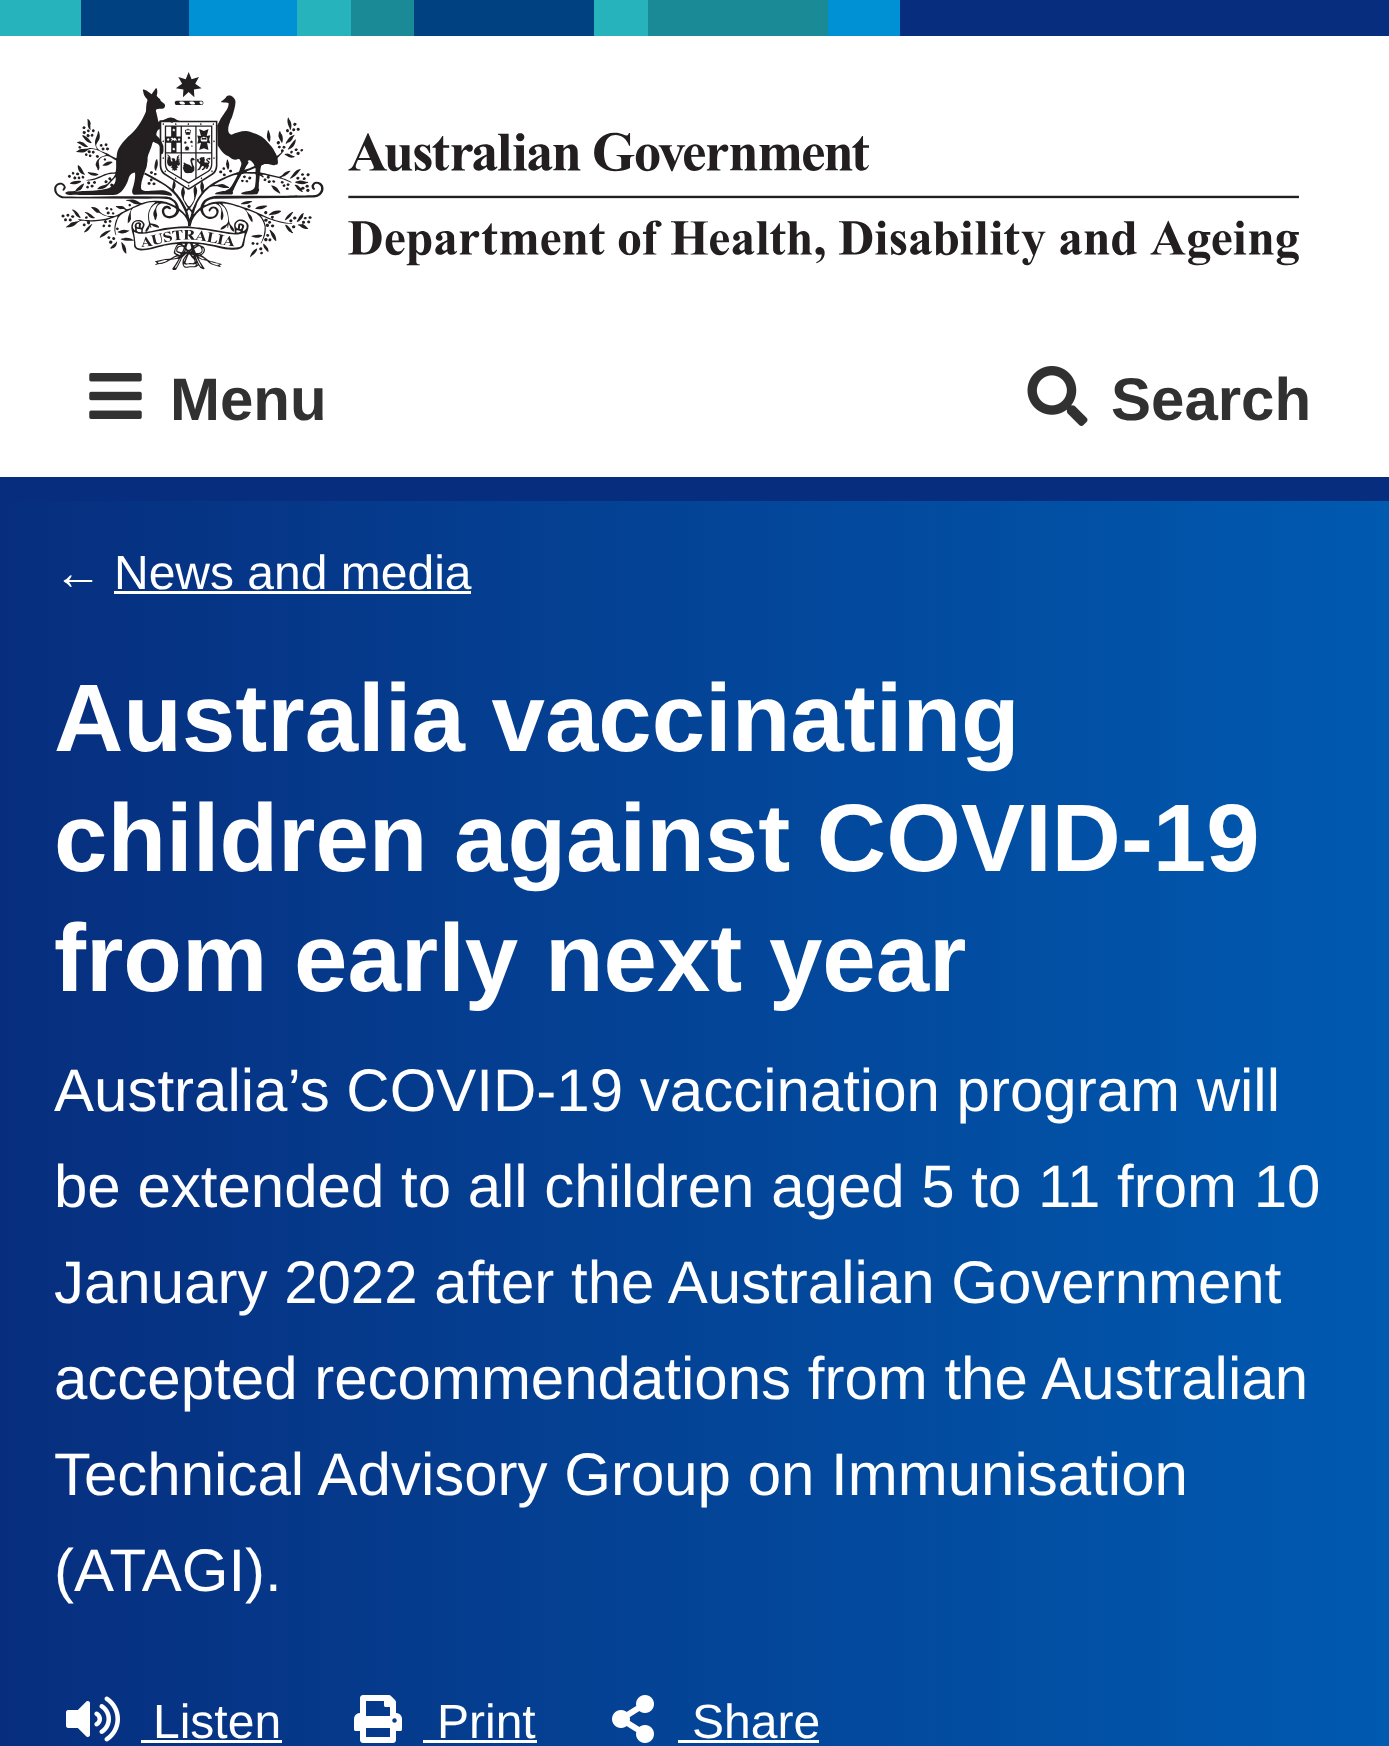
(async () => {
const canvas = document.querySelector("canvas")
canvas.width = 1389
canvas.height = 1746
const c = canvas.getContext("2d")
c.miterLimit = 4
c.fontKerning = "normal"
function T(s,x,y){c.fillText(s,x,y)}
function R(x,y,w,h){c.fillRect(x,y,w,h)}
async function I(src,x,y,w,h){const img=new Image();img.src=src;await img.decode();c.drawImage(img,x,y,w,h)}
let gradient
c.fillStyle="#fff"
R(0,0,1389,1746)
c.fillStyle="#072e7e"
R(900,0,489,36)
c.fillStyle="#27b3bb"
R(0,0,81,36)
c.fillStyle="#004181"
R(81,0,108,36)
c.fillStyle="#0091d5"
R(189,0,108,36)
c.fillStyle="#27b3bb"
R(297,0,54,36)
c.fillStyle="#1a8a96"
R(351,0,63,36)
c.fillStyle="#004181"
R(414,0,180,36)
c.fillStyle="#27b3bb"
R(594,0,54,36)
c.fillStyle="#1a8a96"
R(648,0,180,36)
c.fillStyle="#0091d5"
R(828,0,72,36)
await I("1.png",54,72,1245,198)
c.fillStyle="#072e7e"
R(0,477,1389,24)
await I("2.png",89,373,53,46)
c.font="bold 60px Liberation Sans"
c.fillStyle="#313131"
T("Menu",170,420)
await I("3.png",1027,366,61,60)
T("Search",1111,420)
gradient = c.createLinearGradient(0,1170,1389,1170)
gradient.addColorStop(0,"#072e7e")
gradient.addColorStop(1,"#005ab0")
c.fillStyle = gradient
R(0,501,1389,1245)
c.font="48px Liberation Sans"
c.fillStyle="#fff"
T("←",54,589)
T("News and media",114,589)
R(114,591,357,3)
c.font="bold 96px Liberation Sans"
T("Australia vaccinating",54,751)
T("children against COVID-19",54,871)
T("from early next year",54,991)
c.font="60px Liberation Sans"
T("Australia’s COVID-19 vaccination program will",54,1111)
T("be extended to all children aged 5 to 11 from 10",54,1207)
T("January 2022 after the Australian Government",54,1303)
T("accepted recommendations from the Australian",54,1399)
T("Technical Advisory Group on Immunisation",54,1495)
T("(ATAGI).",54,1591)
await I("4.png",66,1696,54,46)
c.font="48px Liberation Sans"
T("Listen",153,1738)
R(141,1740,141,3)
await I("5.png",354,1695,48,48)
T("Print",437,1738)
R(423,1740,114,3)
await I("6.png",612,1695,42,48)
T("Share",692,1738)
R(678,1740,141,3)
})()
